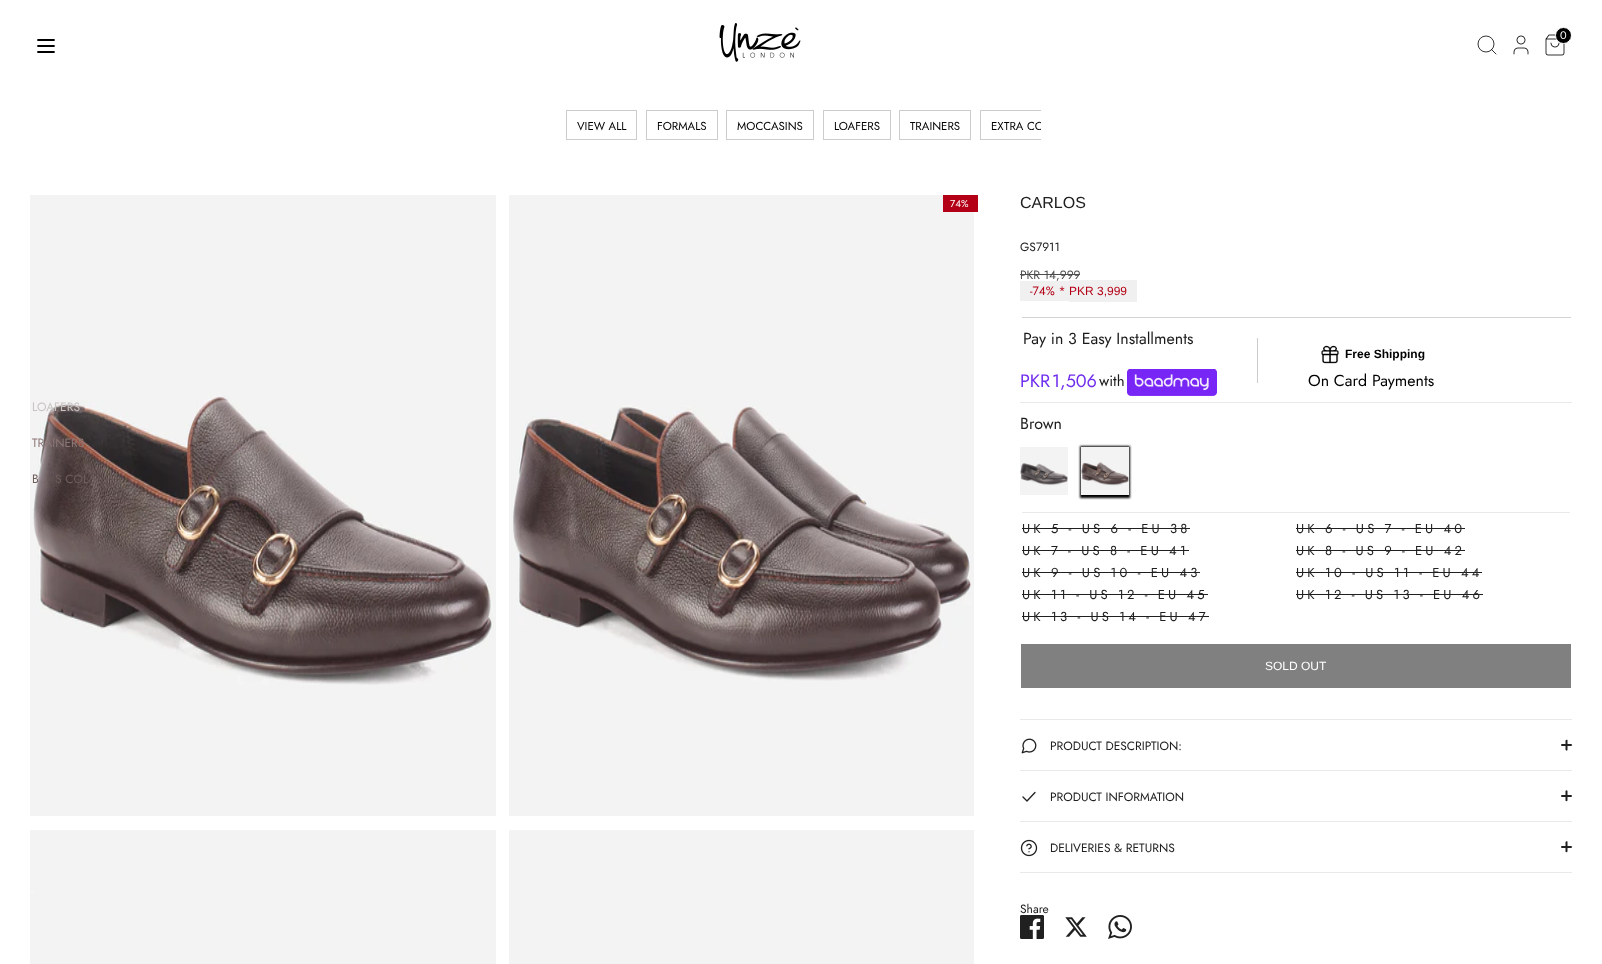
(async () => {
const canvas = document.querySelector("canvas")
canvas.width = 1602
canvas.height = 964
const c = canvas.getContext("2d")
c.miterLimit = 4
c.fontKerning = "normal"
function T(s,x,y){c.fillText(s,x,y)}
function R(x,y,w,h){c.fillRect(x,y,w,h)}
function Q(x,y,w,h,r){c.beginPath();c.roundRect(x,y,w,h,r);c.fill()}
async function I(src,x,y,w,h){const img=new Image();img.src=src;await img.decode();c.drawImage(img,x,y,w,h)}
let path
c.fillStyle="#fff"
R(0,0,1602,964)
await I("1.png",719,23,82,39)
c.beginPath()
c.arc(1486,44,8,0,7)
c.strokeStyle="#000"
c.lineWidth=0.8
c.stroke()
path = new Path2D("M1496 54l-4.5-4.5")
c.lineCap="round"
c.lineJoin="round"
c.stroke(path)
await I("2.png",1513,35,16,20)
await I("3.png",1545,34,20,22)
c.fillStyle="#000"
c.beginPath()
c.arc(1563.5,35.5,8,0,7)
c.fill()
c.strokeStyle="#fff"
c.lineWidth=1
c.stroke()
c.font="11px Jost"
c.fillStyle="#fff"
T("0",1560,39)
path = new Path2D("M38 46h16m-16-6h16m-16 12h16")
c.strokeStyle="#000"
c.lineWidth=1.8
c.stroke(path)
c.fillStyle="#f3f3f3"
R(30,195,466,621)
await I("4.png",33,395,461,290)
c.font="12px Jost"
c.fillStyle="#c9c4c4"
T("LOAFERS",32,411)
c.fillStyle="#8b7775"
T("TRAINERS",32,447)
c.fillStyle="#6e5d5b"
T("B",32,483)
T("S COL",55,483)
c.strokeStyle="#ccc"
c.lineWidth=1
c.lineJoin="miter"
c.strokeRect(566.5,110.5,70,29)
c.font="11.5px Jost"
c.fillStyle="#000"
T("VIEW ALL",577,130)
c.strokeRect(646.5,110.5,71,29)
T("FORMALS",657,130)
c.strokeRect(726.5,110.5,87,29)
T("MOCCASINS",737,130)
c.strokeRect(823.5,110.5,67,29)
T("LOAFERS",834,130)
c.strokeRect(899.5,110.5,71,29)
T("TRAINERS",910,130)
c.save()
c.beginPath()
c.rect(561,110,480,55)
c.clip()
c.strokeRect(980.5,110.5,110,29)
T("EXTRA CO",991,130)
c.restore()
c.fillStyle="#f3f3f3"
R(509,195,465,621)
await I("5.png",513,403,458,278)
R(30,830,466,134)
c.fillStyle="#f9f9f9"
R(30,891,4,1)
c.fillStyle="#f3f3f3"
R(509,830,465,134)
c.fillStyle="#b40016"
R(943,195,35,17)
c.font="10px Jost"
c.fillStyle="#fff"
T("74%",950,207)
c.font="16px Liberation Sans"
c.fillStyle="#202020"
T("CARLOS",1020,208)
c.font="12px Jost"
T("GS7911",1020,251)
c.fillStyle="#f0f0f0"
R(1069,280,68,22)
c.fillStyle="#4d4d4d"
T("PKR 14,999",1020,279)
R(1020,274,60,1)
c.fillStyle="#f0f0f0"
R(1020,281,49,20)
c.fillStyle="#b40016"
T("-74% *",1030,295)
c.font="12px Liberation Sans"
T("PKR 3,999",1069,295)
c.fillStyle="#d3d3d3"
R(1022,317,549,1)
c.font="16px Jost"
c.fillStyle="#1a1a1a"
T("Pay in 3 Easy Installments",1023,344)
c.font="18px Jost"
c.fillStyle="#702ded"
T("PKR",1020,387)
T("1,506",1052,387)
c.font="15px Jost"
c.fillStyle="#1a1a1a"
T("with",1099,386)
await I("6.png",1127,369,90,27)
c.fillStyle="#ccc"
R(1257,338,1,45)
await I("7.png",1321,345,18,19)
c.font="bold 12px Liberation Sans"
c.fillStyle="#000"
T("Free Shipping",1345,358)
c.font="16px Jost"
T("On Card Payments",1308,386)
c.fillStyle="#e9e9e9"
R(1020,402,552,1)
c.fillStyle="#202020"
T("Brown",1020,429)
await I("8.png",1020,447,48,48)
c.fillStyle="#000"
c.filter="blur(1px)"
c.beginPath()
c.rect(1080,446,50,52)
c.fill()
c.filter="none"
await I("9.png",1081,447,48,48)
c.fillStyle="#e9e9e9"
R(1022,512,548,1)
c.letterSpacing="3.2px"
c.font="13px Jost"
c.fillStyle="#202020"
T("UK 5 - US 6 - EU 38",1022,533)
R(1022,528,168,1)
T("UK 6 - US 7 - EU 40",1296,533)
R(1296,528,169,1)
T("UK 7 - US 8 - EU 41",1022,555)
R(1022,550,167,1)
T("UK 8 - US 9 - EU 42",1296,555)
R(1296,550,169,1)
T("UK 9 - US 10 - EU 43",1022,577)
R(1022,572,178,1)
T("UK 10 - US 11 - EU 44",1296,577)
R(1296,572,186,1)
T("UK 11 - US 12 - EU 45",1022,599)
R(1022,594,186,1)
T("UK 12 - US 13 - EU 46",1296,599)
R(1296,594,187,1)
T("UK 13 - US 14 - EU 47",1022,621)
R(1022,616,187,1)
c.fillStyle="#808080"
R(1021,644,550,44)
c.letterSpacing="0px"
c.font="12px Liberation Sans"
c.fillStyle="#fff"
T("SOLD OUT",1265,670)
c.fillStyle="#e9e9e9"
R(1020,719,552,1)
R(1020,770,552,1)
await I("10.png",1021,738,16,16)
c.font="12px Jost"
c.fillStyle="#202020"
T("PRODUCT DESCRIPTION:",1050,750)
path = new Path2D("M1565.5 749.5v-9c.5-1 1.5-1 2-.5v10c-.5 1-2 .5-2-.5z")
c.fill(path)
Q(1561,744,11,2,1)
c.fillStyle="#e9e9e9"
R(1020,821,552,1)
path = new Path2D("M1035 792.5l-8 8.5l-4-4")
c.strokeStyle="#202020"
c.lineWidth=1.3
c.lineJoin="round"
c.stroke(path)
c.fillStyle="#202020"
T("PRODUCT INFORMATION",1050,801)
path = new Path2D("M1565.5 800.5v-9.5c.5-1 1.5-1 2 0v9.5c-.5 1-2 1-2 0z")
c.fill(path)
Q(1561,795,11,2,1)
c.fillStyle="#e9e9e9"
R(1020,872,552,1)
await I("11.png",1020,839,18,18)
c.fillStyle="#202020"
T("DELIVERIES & RETURNS",1050,852)
path = new Path2D("M1565.5 851.5v-9.5c.5-1 1.5-1 2-.5v10c-.5 1-2 1-2 0z")
c.fill(path)
Q(1561,846,11,2,1)
T("Share",1020,913)
await I("12.png",1020,915,24,24)
await I("13.png",1065,917,22,20)
await I("14.png",1108,915,24,24)
})()
